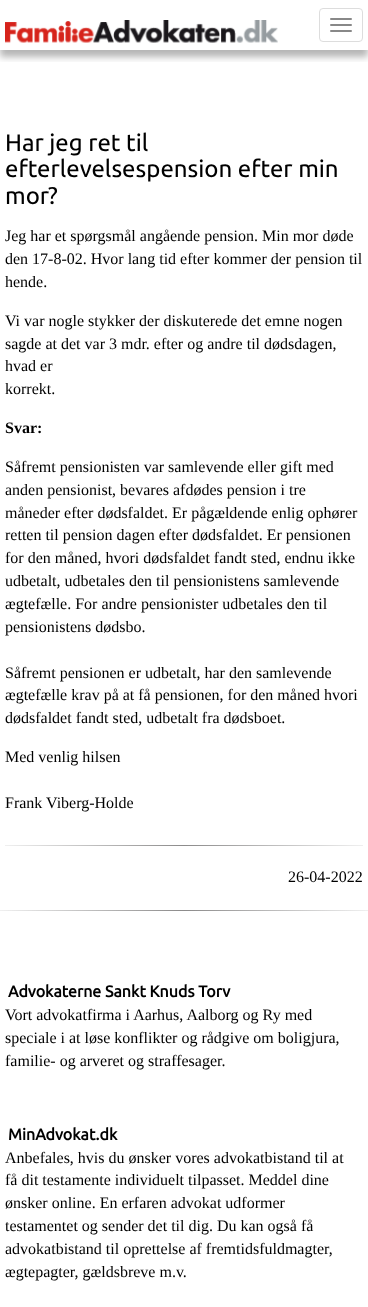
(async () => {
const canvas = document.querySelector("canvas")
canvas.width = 368
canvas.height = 1307
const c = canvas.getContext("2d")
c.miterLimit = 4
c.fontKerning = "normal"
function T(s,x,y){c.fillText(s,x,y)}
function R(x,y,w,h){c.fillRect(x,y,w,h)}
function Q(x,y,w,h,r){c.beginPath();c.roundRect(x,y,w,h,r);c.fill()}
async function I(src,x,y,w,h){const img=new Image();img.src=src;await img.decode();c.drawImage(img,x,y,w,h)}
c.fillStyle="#fff"
R(0,0,368,1307)
c.save()
c.beginPath()
c.rect(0,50,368,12)
c.clip()
c.fillStyle="#0000004a"
c.filter="blur(3.5px)"
c.beginPath()
c.rect(0,7,368,50)
c.fill()
c.filter="none"
c.restore()
await I("1.png",5,20,273,23)
c.beginPath()
c.roundRect(319.5,8.5,43,33,3.5)
c.strokeStyle="#ddd"
c.stroke()
c.fillStyle="#888"
Q(330,18,22,2,1)
Q(330,24,22,2,1)
Q(330,30,22,2,1)
await I("2.png",0,910,368,1)
c.font="24px Ubuntu"
c.fillStyle="#000"
T("Har jeg ret til",5,151)
T("efterlevelsespension efter min",5,177)
T("mor?",5,204)
c.font="16px Liberation Serif"
T("Jeg har et spørgsmål angående pension. Min mor døde",5,241)
T("den 17-8-02. Hvor lang tid efter kommer der pension til",5,264)
T("hende.",5,287)
T("Vi var nogle stykker der diskuterede det emne nogen",5,326)
T("sagde at det var 3 mdr. efter og andre til dødsdagen,",5,349)
T("hvad er",5,371)
T("korrekt.",5,394)
c.font="bold 16px Liberation Serif"
T("Svar:",5,433)
c.font="16px Liberation Serif"
T("Såfremt pensionisten var samlevende eller gift med",5,472)
T("anden pensionist, bevares afdødes pension i tre",5,495)
T("måneder efter dødsfaldet. Er pågældende enlig ophører",5,518)
T("retten til pension dagen efter dødsfaldet. Er pensionen",5,540)
T("for den måned, hvori dødsfaldet fandt sted, endnu ikke",5,563)
T("udbetalt, udbetales den til pensionistens samlevende",5,586)
T("ægtefælle. For andre pensionister udbetales den til",5,609)
T("pensionistens dødsbo.",5,632)
T("Såfremt pensionen er udbetalt, har den samlevende",5,678)
T("ægtefælle krav på at få pensionen, for den måned hvori",5,700)
T("dødsfaldet fandt sted, udbetalt fra dødsboet.",5,723)
T("Med venlig hilsen",5,762)
T("Frank Viberg-Holde",5,808)
await I("3.png",5,845,358,1)
T("26-04-2022",288,882)
c.font="bold 16px Ubuntu"
T("Advokaterne Sankt Knuds Torv",8,997)
c.font="16px Liberation Serif"
T("Vort advokatfirma i Aarhus, Aalborg og Ry med",5,1020)
T("speciale i at løse konflikter og rådgive om boligjura,",5,1043)
T("familie- og arveret og straffesager.",5,1066)
c.font="bold 16px Ubuntu"
T("MinAdvokat.dk",8,1140)
c.font="16px Liberation Serif"
T("Anbefales, hvis du ønsker vores advokatbistand til at",5,1163)
T("få dit testamente individuelt tilpasset. Meddel dine",5,1185)
T("ønsker online. En erfaren advokat udformer",5,1208)
T("testamentet og sender det til dig. Du kan også få",5,1231)
T("advokatbistand til oprettelse af fremtidsfuldmagter,",5,1254)
T("ægtepagter, gældsbreve m.v.",5,1277)
})()
